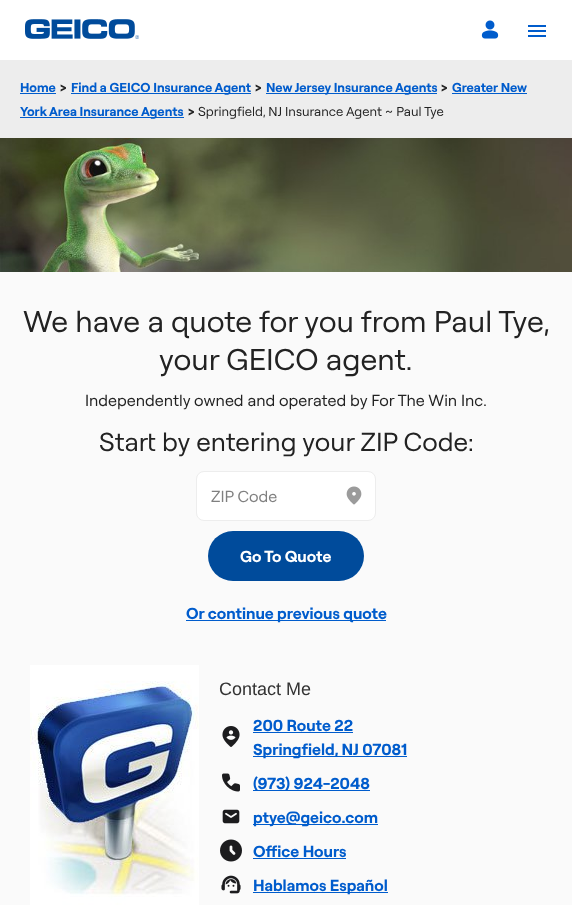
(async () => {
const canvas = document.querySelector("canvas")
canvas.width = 572
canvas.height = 905
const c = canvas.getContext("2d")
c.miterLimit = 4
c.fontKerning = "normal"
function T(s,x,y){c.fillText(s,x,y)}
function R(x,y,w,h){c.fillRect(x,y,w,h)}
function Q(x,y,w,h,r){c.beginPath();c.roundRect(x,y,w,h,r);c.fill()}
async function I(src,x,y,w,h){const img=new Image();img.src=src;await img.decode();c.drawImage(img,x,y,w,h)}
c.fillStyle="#fff"
R(0,0,572,905)
await I("1.png",25,19,114,20)
await I("2.png",481,20,18,19)
c.fillStyle="#005ccc"
R(528,25,18,2)
R(528,30,18,2)
R(528,35,18,2)
c.fillStyle="#fafafa"
R(0,272,572,633)
c.fillStyle="#ededed"
R(0,60,572,78)
c.font="bold 13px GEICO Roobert"
c.fillStyle="#005ccc"
T("Home",20,92)
R(20,93,36,1)
c.fillStyle="#222"
T(">",59,92)
c.fillStyle="#005ccc"
R(71,93,180,1)
T("Find a GEICO Insurance Agent",71,92)
c.fillStyle="#222"
T(">",254,92)
c.fillStyle="#005ccc"
R(266,93,171,1)
T("New Jersey Insurance Agents",266,92)
c.fillStyle="#222"
T(">",440,92)
c.fillStyle="#005ccc"
T("Greater New",452,92)
R(452,93,75,1)
R(20,117,164,1)
T("York Area Insurance Agents",20,116)
c.fillStyle="#222"
T(">",187,116)
c.font="13px GEICO Roobert"
T("Springfield, NJ Insurance Agent ~ Paul Tye",198,116)
await I("3.png",0,138,572,134)
c.font="30px GEICO Roobert"
T("We have a quote for you from Paul Tye,",23,332)
T("your GEICO agent.",159,370)
c.font="16px GEICO Roobert"
T("Independently owned and operated by For The Win Inc.",85,406)
c.font="26px GEICO Roobert"
T("Start by entering your ZIP Code:",99,451)
c.fillStyle="#fff"
c.beginPath()
c.roundRect(196.5,471.5,179,49,7.5)
c.fill()
c.strokeStyle="#ededed"
c.stroke()
c.font="16px GEICO Roobert"
c.fillStyle="#808080"
T("ZIP Code",211,502)
await I("4.png",346,486,16,19)
c.fillStyle="#004b9b"
Q(208,531,156,50,25)
c.font="bold 16px GEICO Roobert"
c.fillStyle="#fff"
T("Go To Quote",240,562)
c.fillStyle="#005ccc"
R(186,620,200,1)
T("Or continue previous quote",186,619)
await I("5.png",30,665,169,240)
c.font="18px Liberation Sans"
c.fillStyle="#333"
T("Contact Me",219,695)
await I("6.png",222,726,18,21)
c.font="bold 16px GEICO Roobert"
c.fillStyle="#005ccc"
T("200 Route 22",253,731)
R(253,732,100,1)
R(253,756,154,1)
T("Springfield, NJ 07081",253,755)
await I("7.png",222,773,18,19)
R(253,790,117,1)
T("(973) 924-2048",253,789)
await I("8.png",222,809,18,15)
R(253,824,125,1)
T("ptye@geico.com",253,823)
await I("9.png",220,839,22,23)
T("Office Hours",253,857)
R(253,858,93,1)
await I("10.png",221,875,20,19)
R(253,892,135,1)
T("Hablamos Español",253,891)
})()
